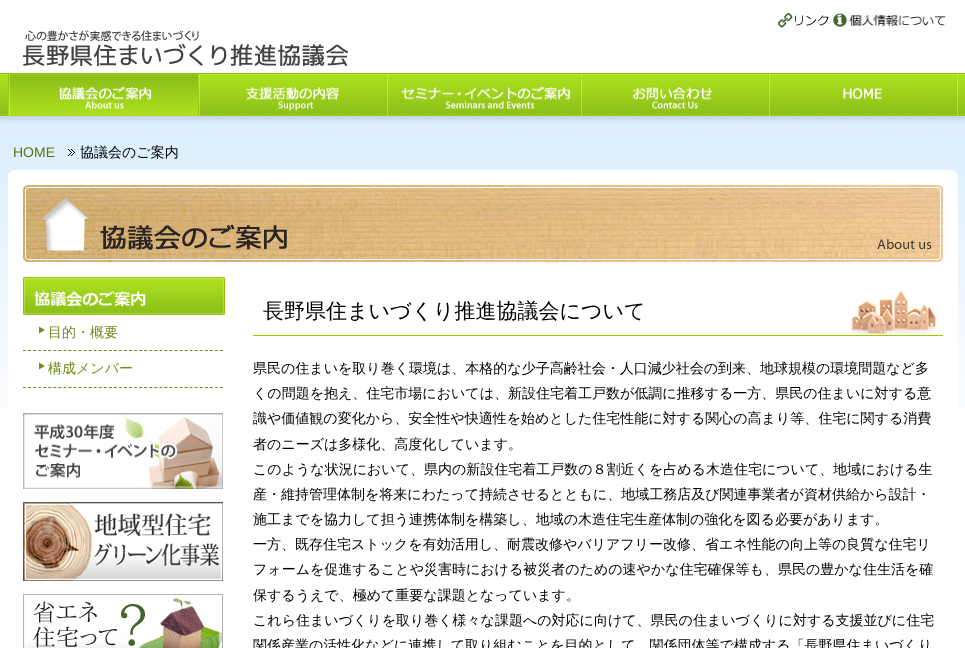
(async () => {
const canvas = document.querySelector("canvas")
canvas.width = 965
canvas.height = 648
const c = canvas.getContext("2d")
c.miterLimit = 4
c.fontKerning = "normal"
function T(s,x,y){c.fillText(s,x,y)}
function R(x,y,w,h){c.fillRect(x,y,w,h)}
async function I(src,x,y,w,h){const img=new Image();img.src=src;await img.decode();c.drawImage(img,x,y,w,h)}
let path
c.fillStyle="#fff"
R(0,0,965,648)
await I("1.png",0,73,965,336)
await I("2.png",778,13,50,15)
await I("3.png",833,27,107,1)
await I("4.png",828,13,118,14)
await I("5.png",23,30,325,36)
await I("6.png",8,74,190,42)
await I("7.png",198,74,188,42)
await I("8.png",246,86,95,25)
await I("9.png",386,74,194,42)
await I("10.png",401,74,177,42)
await I("11.png",580,74,189,42)
await I("12.png",630,74,139,41)
await I("13.png",769,74,189,42)
c.font="14px Liberation Sans"
c.fillStyle="#54780a"
T("HOME",13,157)
await I("14.png",68,149,7,7)
c.font="500 14px WenQuanYi Zen Hei"
c.fillStyle="#000"
T("協議会のご案内",80,157)
c.fillStyle="#fff"
R(8,174,950,235)
await I("15.png",8,170,950,4)
await I("16.png",23,185,920,77)
await I("17.png",23,277,202,38)
await I("18.png",39,326,6,8)
path = new Path2D("M23 350.5h200")
c.strokeStyle="#6d8d1d"
c.setLineDash([3,2.05])
c.stroke(path)
c.fillStyle="#6d8d1d"
T("目的・概要",48,337)
await I("18.png",39,362,6,8)
path = new Path2D("M23 387.5h200")
c.stroke(path)
T("構成メンバー",48,373)
await I("19.png",23,413,200,76)
await I("20.png",23,502,200,79)
await I("21.png",23,594,200,54)
await I("22.png",847,290,89,45)
c.fillStyle="#9c0"
R(253,335,690,1)
c.font="500 21px WenQuanYi Zen Hei"
c.fillStyle="#000"
T("長野県住まいづくり推進協議会について",263,318)
c.font="500 14px WenQuanYi Zen Hei"
T("県民の住まいを取り巻く環境は、本格的な少子高齢社会・人口減少社会の到来、地球規模の環境問題など多",253,373)
T("くの問題を抱え、住宅市場においては、新設住宅着工戸数が低調に推移する一方、県民の住まいに対する意",253,398)
T("識や価値観の変化から、安全性や快適性を始めとした住宅性能に対する関心の高まり等、住宅に関する消費",253,423)
T("者のニーズは多様化、高度化しています。",253,449)
T("このような状況において、県内の新設住宅着工戸数の８割近くを占める木造住宅について、地域における生",253,474)
T("産・維持管理体制を将来にわたって持続させるとともに、地域工務店及び関連事業者が資材供給から設計・",253,499)
T("施工までを協力して担う連携体制を構築し、地域の木造住宅生産体制の強化を図る必要があります。",253,524)
T("一方、既存住宅ストックを有効活用し、耐震改修やバリアフリー改修、省エネ性能の向上等の良質な住宅リ",253,549)
T("フォームを促進することや災害時における被災者のための速やかな住宅確保等も、県民の豊かな住生活を確",253,574)
T("保するうえで、極めて重要な課題となっています。",253,600)
T("これら住まいづくりを取り巻く様々な課題への対応に向けて、県民の住まいづくりに対する支援並びに住宅",253,625)
T("関係産業の活性化などに連携して取り組むことを目的として、関係団体等で構成する「長野県住まいづくり",253,650)
})()
